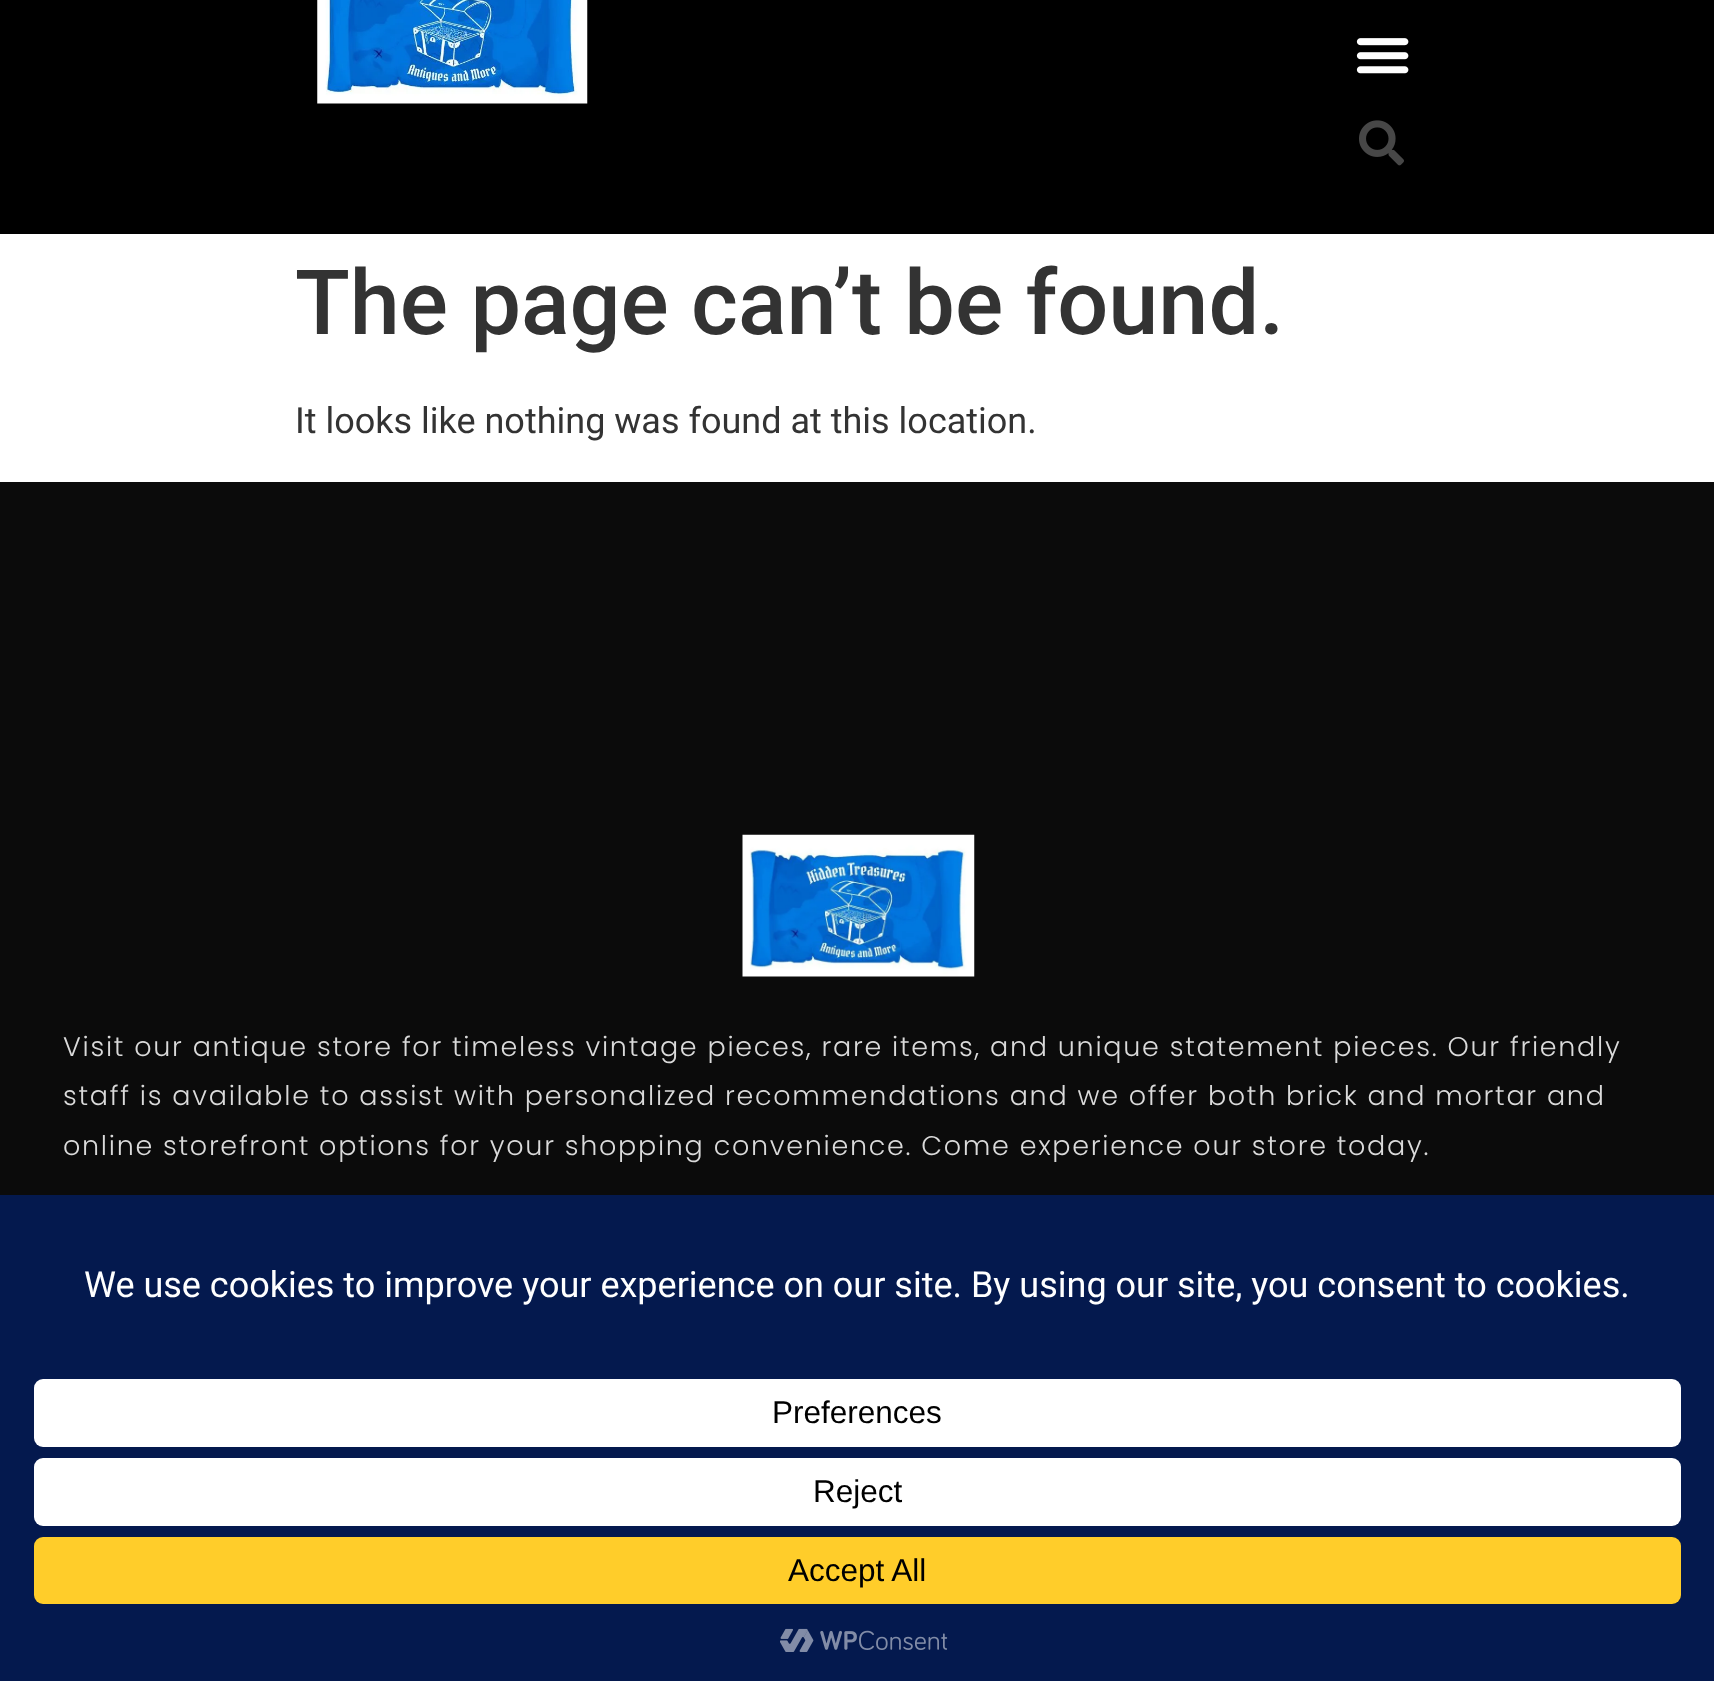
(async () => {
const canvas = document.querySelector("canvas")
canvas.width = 1714
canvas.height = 1681
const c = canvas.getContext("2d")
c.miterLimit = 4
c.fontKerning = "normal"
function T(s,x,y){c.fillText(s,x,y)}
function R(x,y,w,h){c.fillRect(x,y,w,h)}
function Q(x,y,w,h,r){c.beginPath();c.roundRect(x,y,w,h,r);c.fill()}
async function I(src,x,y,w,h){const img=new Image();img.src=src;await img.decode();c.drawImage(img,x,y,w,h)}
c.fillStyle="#fff"
R(0,0,1714,1681)
c.fillStyle="#000"
R(0,0,1714,234)
await I("1.png",317,0,271,104)
await I("2.png",1356,38,53,36)
await I("3.png",1359,120,45,46)
c.font="500 90px Roboto"
c.fillStyle="#333"
T("The page can’t be found.",295,334)
c.font="36px Roboto"
T("It looks like nothing was found at this location.",295,433)
c.fillStyle="#0b0b0b"
R(0,482,1714,713)
await I("4.png",742,834,233,143)
c.letterSpacing="1.71px"
c.font="300 27px Poppins"
c.fillStyle="#dadada"
T("Visit our antique store for timeless vintage pieces, rare items, and unique statement pieces. Our friendly",63,1056)
T("staff is available to assist with personalized recommendations and we offer both brick and mortar and",63,1105)
T("online storefront options for your shopping convenience. Come experience our store today.",63,1155)
c.fillStyle="#04194e"
R(0,1195,1714,486)
c.letterSpacing="0px"
c.font="36px Roboto"
c.fillStyle="#fff"
T("We use cookies to improve your experience on our site. By using our site, you consent to cookies.",84,1297)
Q(34,1379,1647,68,9)
c.font="31.5px Liberation Sans"
c.fillStyle="#000"
T("Preferences",772,1423)
c.fillStyle="#fff"
Q(34,1458,1647,68,9)
c.fillStyle="#000"
T("Reject",813,1502)
c.fillStyle="#ffcd2a"
Q(34,1537,1647,67,9)
c.fillStyle="#000"
T("Accept All",788,1581)
await I("5.png",780,1628,168,24)
})()
